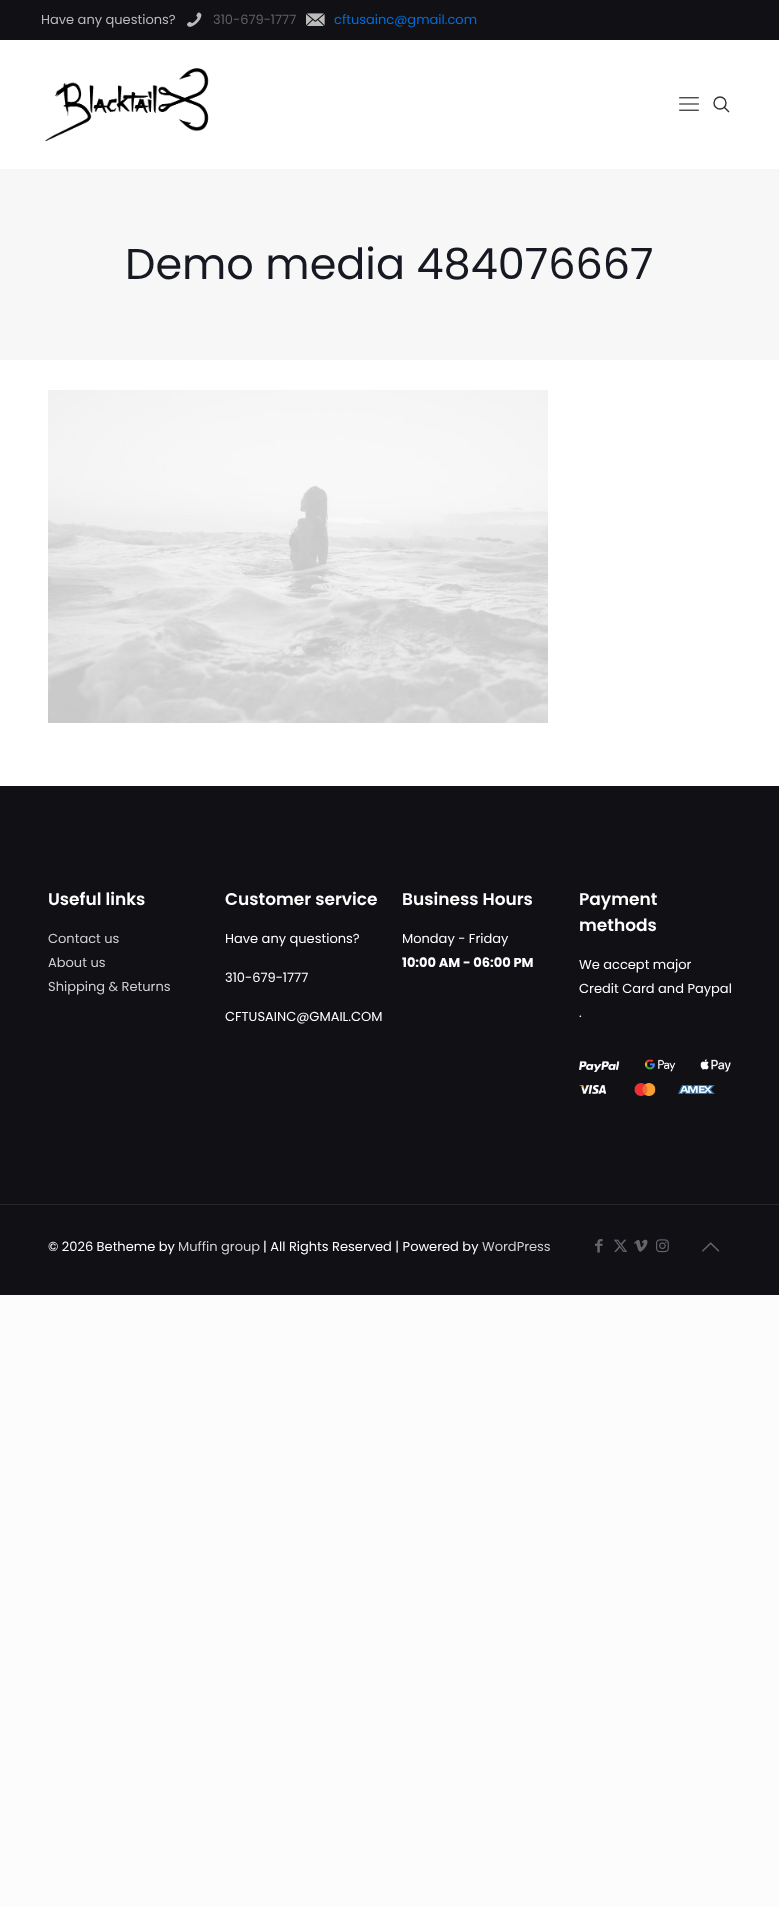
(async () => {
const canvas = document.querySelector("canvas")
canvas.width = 779
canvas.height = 1906
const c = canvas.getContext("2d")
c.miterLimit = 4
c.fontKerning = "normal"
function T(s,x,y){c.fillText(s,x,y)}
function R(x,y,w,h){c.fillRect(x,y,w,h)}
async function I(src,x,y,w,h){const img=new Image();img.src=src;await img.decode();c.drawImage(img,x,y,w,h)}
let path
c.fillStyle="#fcfcfc"
R(0,0,779,1906)
c.fillStyle="#fff"
R(0,40,779,746)
c.fillStyle="#101015"
R(0,0,779,40)
c.font="13px Poppins"
c.fillStyle="#bbb"
T("Have any questions?",41,24)
await I("1.png",187,12,15,15)
c.fillStyle="#626262"
T("310-679-1777",213,24)
await I("2.png",306,13,19,13)
c.fillStyle="#006edf"
T("cftusainc@gmail.com",334,24)
await I("3.png",44,68,165,74)
await I("4.png",679,97,20,14)
c.beginPath()
c.arc(720,103,6,0,7)
c.strokeStyle="#333"
c.lineWidth=1.4
c.stroke()
path = new Path2D("M724 107l5 5")
c.stroke(path)
c.fillStyle="#f7f7f7"
R(0,169,779,191)
c.font="43px Poppins"
c.fillStyle="#161922"
T("Demo media 484076667",125,279)
await I("5.png",48,390,500,333)
c.fillStyle="#101015"
R(0,786,779,509)
c.font="600 17px Poppins"
c.fillStyle="#fff"
T("Useful links",48,905)
c.font="13px Poppins"
c.fillStyle="#d1d1d1"
T("Contact us",48,943)
T("About us",48,967)
T("Shipping & Returns",48,991)
c.font="600 17px Poppins"
c.fillStyle="#fff"
T("Customer service",225,905)
c.font="13px Poppins"
T("Have any questions?",225,943)
T("310-679-1777",225,982)
T("CFTUSAINC@GMAIL.COM",225,1021)
c.font="600 17px Poppins"
T("Business Hours",402,905)
c.font="13px Poppins"
T("Monday - Friday",402,943)
c.font="bold 13px Poppins"
T("10:00 AM - 06:00 PM",402,967)
c.font="600 17px Poppins"
T("Payment",579,905)
T("methods",579,931)
c.font="13px Poppins"
T("We accept major",579,969)
T("Credit Card and Paypal",579,993)
T(".",579,1017)
await I("6.png",579,1059,152,13)
await I("7.png",579,1083,136,13)
c.fillStyle="#28282c"
R(0,1204,779,1)
c.fillStyle="#fff"
T("© 2026 Betheme by",48,1251)
c.fillStyle="#d1d1d1"
T("Muffin group",178,1251)
c.fillStyle="#fff"
T("| All Rights Reserved | Powered by",263,1251)
c.fillStyle="#d1d1d1"
T("WordPress",482,1251)
await I("8.png",595,1239,8,14)
await I("9.png",614,1239,14,13)
await I("10.png",634,1239,14,13)
await I("11.png",656,1239,13,14)
await I("12.png",702,1242,18,10)
})()
